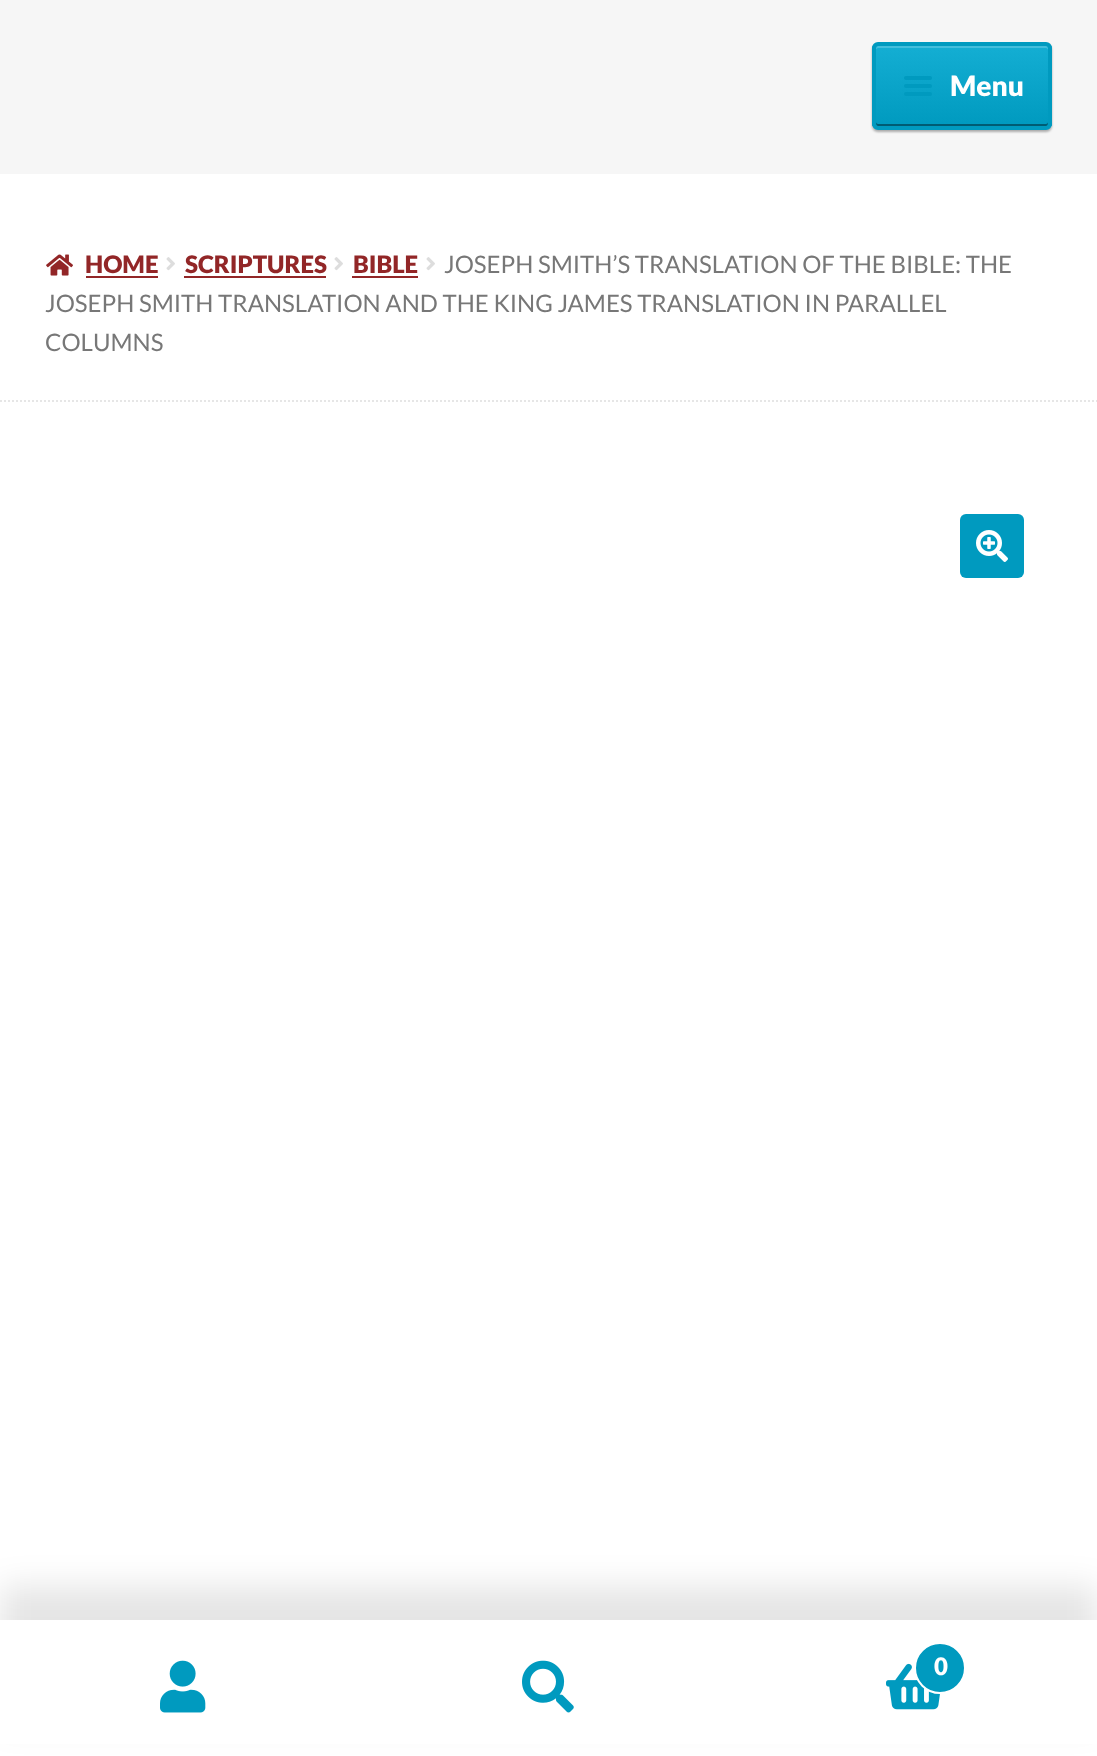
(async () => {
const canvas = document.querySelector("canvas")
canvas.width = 1097
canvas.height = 1756
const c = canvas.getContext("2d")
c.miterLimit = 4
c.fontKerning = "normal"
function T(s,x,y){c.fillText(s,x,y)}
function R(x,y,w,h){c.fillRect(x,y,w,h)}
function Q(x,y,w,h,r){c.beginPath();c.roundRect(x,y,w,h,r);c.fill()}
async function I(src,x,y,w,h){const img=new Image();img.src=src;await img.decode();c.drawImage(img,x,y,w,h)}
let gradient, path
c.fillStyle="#fff"
R(0,0,1097,1756)
c.fillStyle="#f6f6f6"
R(0,0,1097,174)
c.fillStyle="#0000004d"
c.filter="blur(1px)"
c.beginPath()
c.roundRect(872,44,180,88,6)
c.fill()
c.filter="none"
c.save()
c.beginPath()
c.roundRect(872,42,180,88,6)
c.clip()
gradient = c.createLinearGradient(962,46,962,126)
gradient.addColorStop(0,"#14aed3")
gradient.addColorStop(1,"#009abf")
c.fillStyle = gradient
R(872,46,180,80)
c.restore()
c.fillStyle="#43bedc"
path = new Path2D("M878 48h168c1 0 2 1 2 2c0-2 0-4-2-4h-168c-2 0-2 2-2 4c0-1 1-2 2-2z")
c.fill(path)
c.fillStyle="#005c73"
path = new Path2D("M876 122c0 2 0 4 2 4h168c2 0 2-2 2-4c0 1-1 2-2 2h-168c-1 0-2-1-2-2z")
c.fill(path)
c.beginPath()
c.roundRect(874,44,176,84,4)
c.strokeStyle="#009abf"
c.lineWidth=4
c.stroke()
c.fillStyle="#009abf"
Q(904,76,28,4,2)
Q(904,84,28,4,2)
c.font="900 28px Lato"
c.fillStyle="#fff"
T("Menu",950,96)
c.fillStyle="#009abf"
Q(904,92,28,4,2)
path = new Path2D("M-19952 401h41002")
c.strokeStyle="#e6e6e6"
c.lineWidth=2
c.setLineDash([2,2])
c.stroke(path)
await I("1.png",46,254,27,22)
c.font="900 24px Lato"
c.fillStyle="#922627"
T("HOME",85,273)
R(86,276,72,2)
await I("2.png",166,257,9,14)
T("SCRIPTURES",185,273)
R(184,276,142,2)
await I("2.png",334,257,9,14)
T("BIBLE",353,273)
R(352,276,66,2)
await I("2.png",426,257,9,14)
c.font="24px Lato"
c.fillStyle="#777"
T("JOSEPH SMITH’S TRANSLATION OF THE BIBLE: THE",444,273)
T("JOSEPH SMITH TRANSLATION AND THE KING JAMES TRANSLATION IN PARALLEL",45,312)
T("COLUMNS",45,351)
c.fillStyle="#009abf"
Q(960,514,64,64,6)
await I("3.png",976,530,32,32)
c.fillStyle="#0000001a"
c.filter="blur(16px)"
c.beginPath()
c.rect(0,1586,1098,138)
c.fill()
c.filter="none"
c.fillStyle="#fff"
R(0,1620,1097,124)
await I("4.png",160,1660,46,53)
await I("5.png",522,1660,52,53)
await I("6.png",886,1663,55,47)
c.fillStyle="#009abf"
c.beginPath()
c.arc(940,1668,25,0,7)
c.fill()
c.strokeStyle="#fff"
c.setLineDash([])
c.stroke()
c.font="900 24px Lato"
c.fillStyle="#fff"
T("0",934,1675)
})()
